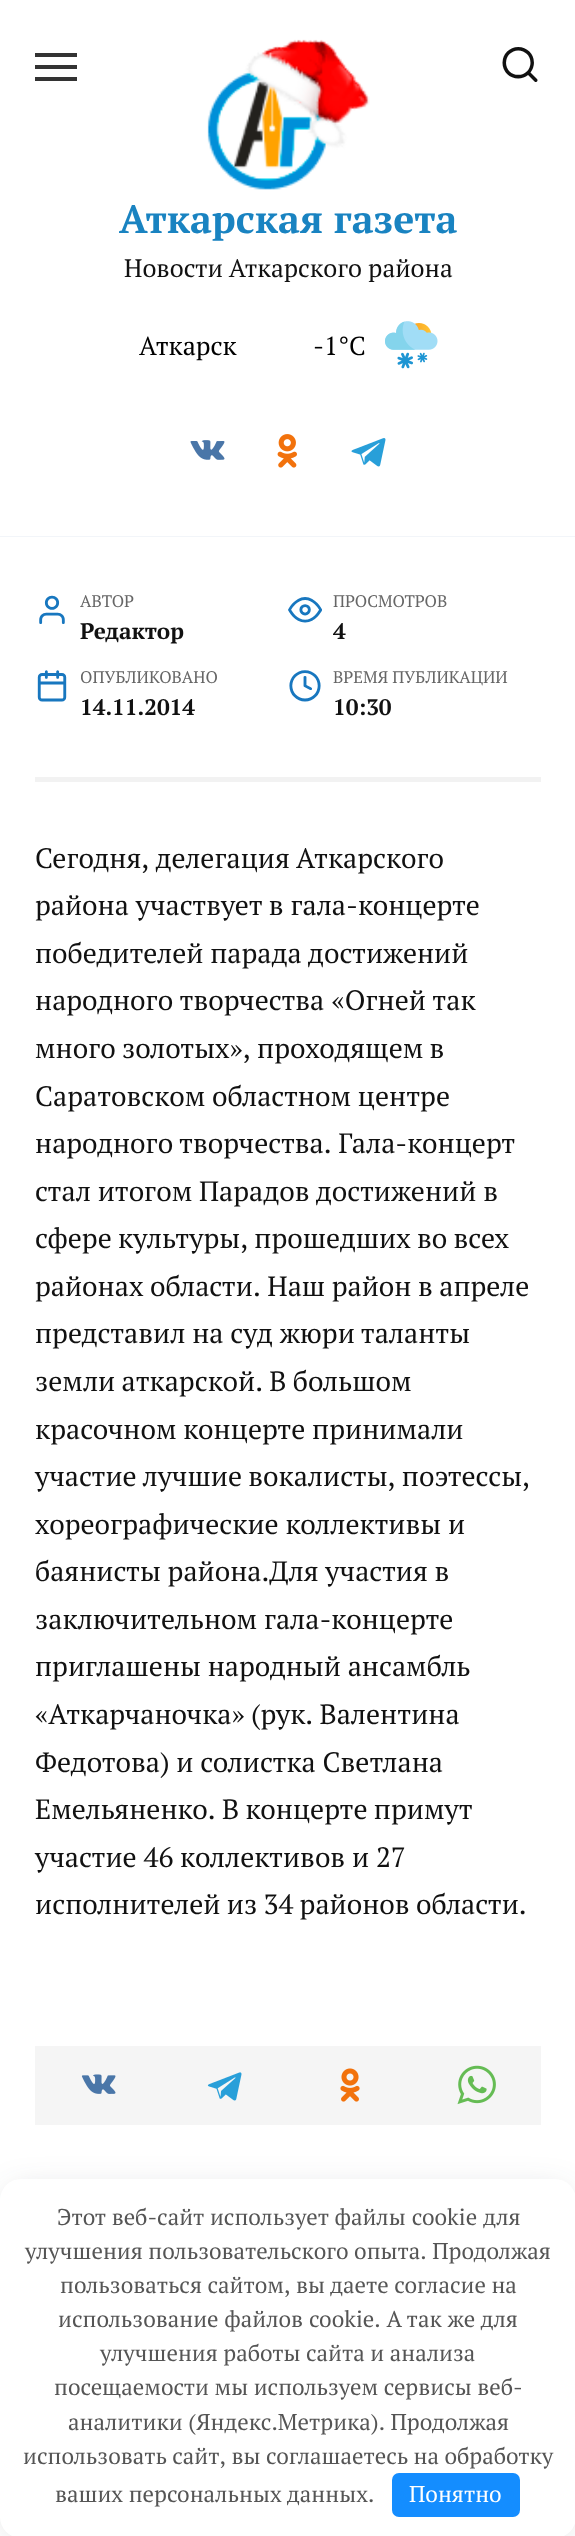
(async () => {
const canvas = document.querySelector("canvas")
canvas.width = 575
canvas.height = 2536
const c = canvas.getContext("2d")
c.miterLimit = 4
c.fontKerning = "normal"
function T(s,x,y){c.fillText(s,x,y)}
function R(x,y,w,h){c.fillRect(x,y,w,h)}
function Q(x,y,w,h,r){c.beginPath();c.roundRect(x,y,w,h,r);c.fill()}
async function I(src,x,y,w,h){const img=new Image();img.src=src;await img.decode();c.drawImage(img,x,y,w,h)}
c.fillStyle="#fff"
R(0,0,575,2536)
c.fillStyle="#f2f5f9"
R(0,536,575,1)
c.fillStyle="#333"
R(35,53,42,4)
R(35,65,42,4)
R(35,77,42,4)
c.font="42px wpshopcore"
c.fillStyle="#111"
T("🔍",499,82)
await I("1.png",207,39,163,151)
c.font="bold 39.25px PT Serif"
c.fillStyle="#1983c1"
T("Аткарская газета",119,233)
c.font="25.25px PT Serif"
c.fillStyle="#111"
T("Новости Аткарского района",124,277)
c.font="26px PT Serif"
c.fillStyle="#000"
T("Аткарск",139,355)
T("-1°C",313,355)
await I("2.png",385,321,53,48)
await I("3.png",190,440,35,20)
await I("4.png",277,434,20,34)
await I("5.png",351,438,35,29)
c.fillStyle="#f2f2f2"
R(35,777,506,5)
c.font="34px wpshopcore"
c.fillStyle="#1877bf"
T("👤",35,624)
c.font="16.75px PT Serif"
c.fillStyle="#666"
T("АВТОР",80,607)
c.font="bold 22.5px PT Serif"
c.fillStyle="#111"
T("Редактор",80,639)
c.font="34px wpshopcore"
c.fillStyle="#1877bf"
T("👀",288,624)
c.font="16.75px PT Serif"
c.fillStyle="#666"
T("ПРОСМОТРОВ",333,607)
c.font="bold 22.5px PT Serif"
c.fillStyle="#111"
T("4",333,639)
c.font="34px wpshopcore"
c.fillStyle="#1877bf"
T("📅",35,700)
c.save()
c.beginPath()
c.rect(81,665,173,26)
c.clip()
c.font="16.75px PT Serif"
c.fillStyle="#666"
T("ОПУБЛИКОВАНО",80,683)
c.restore()
c.font="bold 22.5px PT Serif"
c.fillStyle="#111"
T("14.11.2014",80,715)
c.font="34px wpshopcore"
c.fillStyle="#1877bf"
T("🕒",288,700)
c.font="16.75px PT Serif"
c.fillStyle="#666"
T("ВРЕМЯ ПУБЛИКАЦИИ",333,683)
c.font="bold 22.5px PT Serif"
c.fillStyle="#111"
T("10:30",333,715)
c.font="28px PT Serif"
T("Сегодня, делегация Аткарского",35,868)
T("района участвует в гала-концерте",35,915)
T("победителей парада достижений",35,963)
c.wordSpacing="0.5px"
T("народного творчества «Огней так",35,1010)
c.wordSpacing="-0.5px"
T("много золотых», проходящем в",35,1058)
c.wordSpacing="0px"
T("Саратовском областном центре",35,1106)
T("народного творчества. Гала-концерт",35,1153)
T("стал итогом Парадов достижений в",35,1201)
c.wordSpacing="-0.5px"
T("сфере культуры, прошедших во всех",35,1248)
c.wordSpacing="-0.25px"
T("районах области. Наш район в апреле",35,1296)
c.wordSpacing="0px"
T("представил на суд жюри таланты",35,1343)
c.wordSpacing="-0.5px"
T("земли аткарской. В большом",35,1391)
c.wordSpacing="0px"
T("красочном концерте принимали",35,1439)
c.wordSpacing="-0.5px"
T("участие лучшие вокалисты, поэтессы,",35,1486)
c.wordSpacing="0px"
T("хореографические коллективы и",35,1534)
T("баянисты района.Для участия в",35,1581)
T("заключительном гала-концерте",35,1629)
T("приглашены народный ансамбль",35,1676)
c.wordSpacing="-0.5px"
T("«Аткарчаночка» (рук. Валентина",35,1724)
c.wordSpacing="0px"
T("Федотова) и солистка Светлана",35,1772)
c.wordSpacing="-0.5px"
T("Емельяненко. В концерте примут",35,1819)
c.wordSpacing="0px"
T("участие 46 коллективов и 27",35,1867)
c.wordSpacing="-0.5px"
T("исполнителей из 34 районов области.",35,1914)
c.fillStyle="#f5f5f5"
R(35,2046,506,79)
await I("6.png",81,2074,35,20)
await I("7.png",207,2072,35,29)
await I("8.png",340,2068,20,34)
await I("9.png",457,2065,39,40)
c.fillStyle="#292c3833"
c.filter="blur(17.5px)"
c.beginPath()
c.roundRect(9,2193,558,341,12)
c.fill()
c.filter="none"
c.fillStyle="#fff"
Q(0,2179,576,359,21)
c.wordSpacing="0.5px"
c.font="22.75px PT Serif"
c.fillStyle="#555"
T("Этот веб-сайт использует файлы cookie для",57,2225)
c.wordSpacing="0px"
T("улучшения пользовательского опыта. Продолжая",25,2259)
T("пользоваться сайтом, вы даете согласие на",60,2293)
c.wordSpacing="0.25px"
T("использование файлов cookie. А так же для",58,2327)
c.wordSpacing="0px"
T("улучшения работы сайта и анализа",100,2361)
T("посещаемости мы используем сервисы веб-",54,2395)
T("аналитики (Яндекс.Метрика). Продолжая",68,2430)
T("использовать сайт, вы соглашаетесь на обработку",23,2464)
T("ваших персональных данных.",55,2502)
c.fillStyle="#148dff"
Q(392,2473,128,44,7)
c.fillStyle="#fff"
T("Понятно",409,2502)
})()
